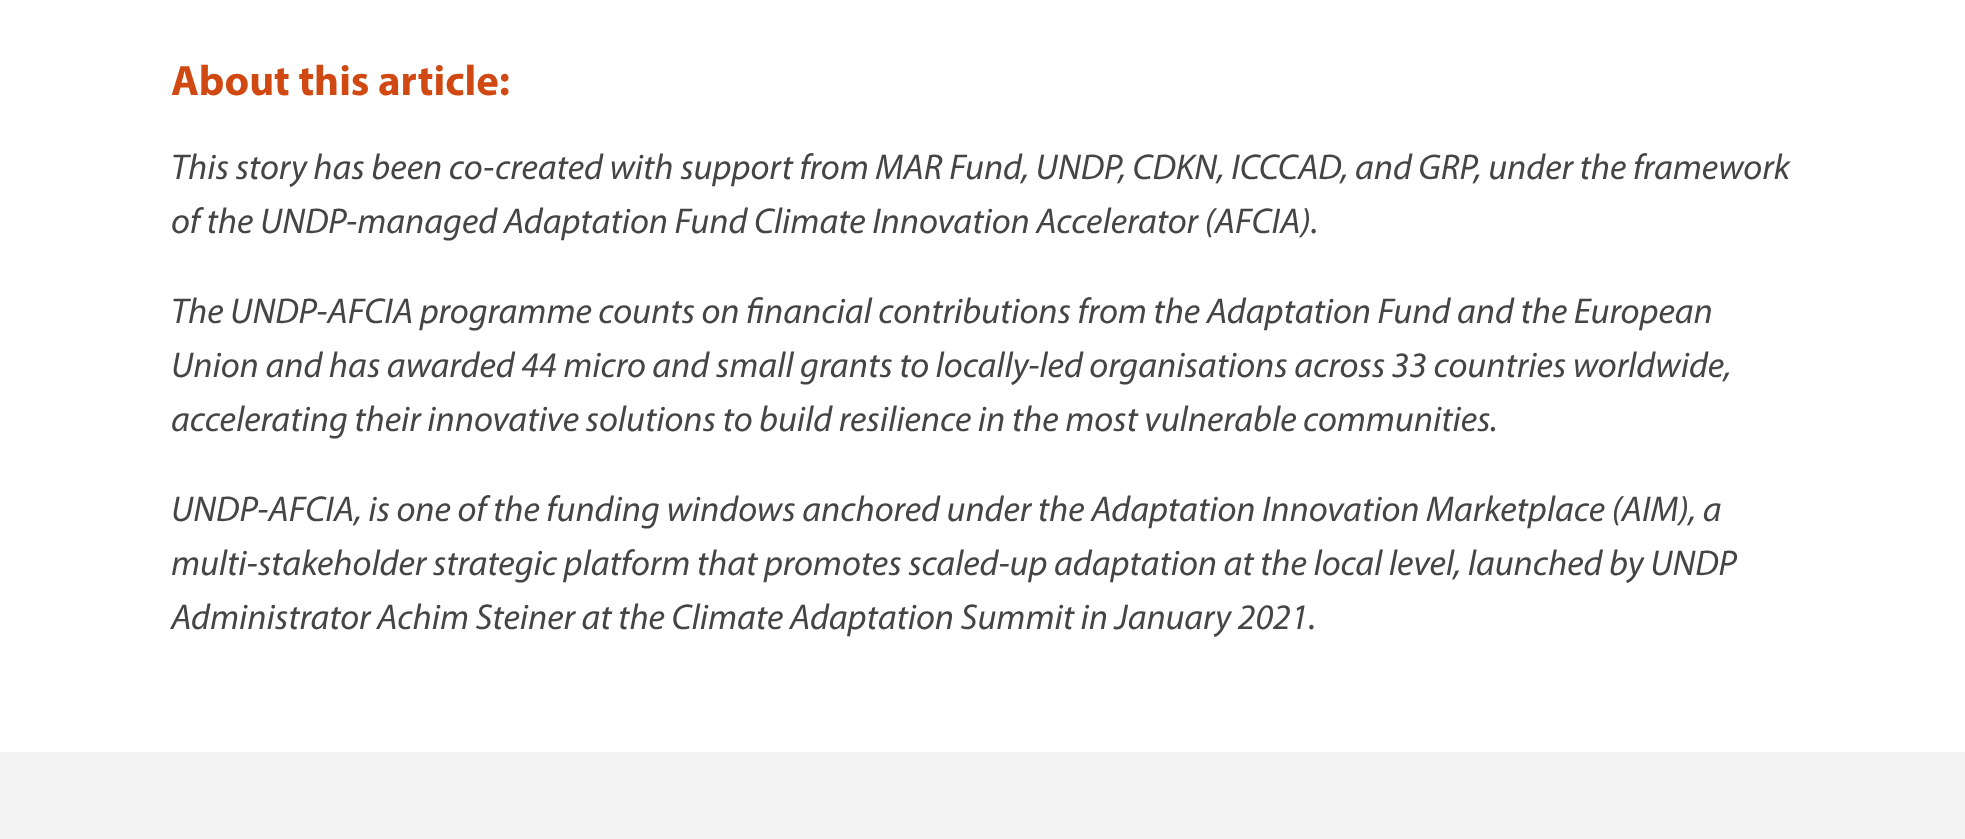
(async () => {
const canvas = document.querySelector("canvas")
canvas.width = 1965
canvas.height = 839
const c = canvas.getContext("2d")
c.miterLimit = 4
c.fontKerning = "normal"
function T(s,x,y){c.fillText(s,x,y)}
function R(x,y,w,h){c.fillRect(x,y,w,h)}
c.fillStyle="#fff"
R(0,0,1965,839)
c.font="bold 42.75px Myriad"
c.fillStyle="#d04912"
T("About this article:",171,95)
c.font="italic 36px Myriad"
c.fillStyle="#454545"
T("This story has been co-created with support from MAR Fund, UNDP, CDKN, ICCCAD, and GRP, under the framework",171,179)
T("of the UNDP-managed Adaptation Fund Climate Innovation Accelerator (AFCIA).",171,233)
T("The UNDP-AFCIA programme counts on financial contributions from the Adaptation Fund and the European",171,323)
T("Union and has awarded 44 micro and small grants to locally-led organisations across 33 countries worldwide,",171,377)
T("accelerating their innovative solutions to build resilience in the most vulnerable communities.",171,431)
T("UNDP-AFCIA, is one of the funding windows anchored under the Adaptation Innovation Marketplace (AIM), a",171,521)
T("multi-stakeholder strategic platform that promotes scaled-up adaptation at the local level, launched by UNDP",171,575)
T("Administrator Achim Steiner at the Climate Adaptation Summit in January 2021.",171,629)
c.fillStyle="#f4f4f4"
R(0,752,1965,87)
})()
